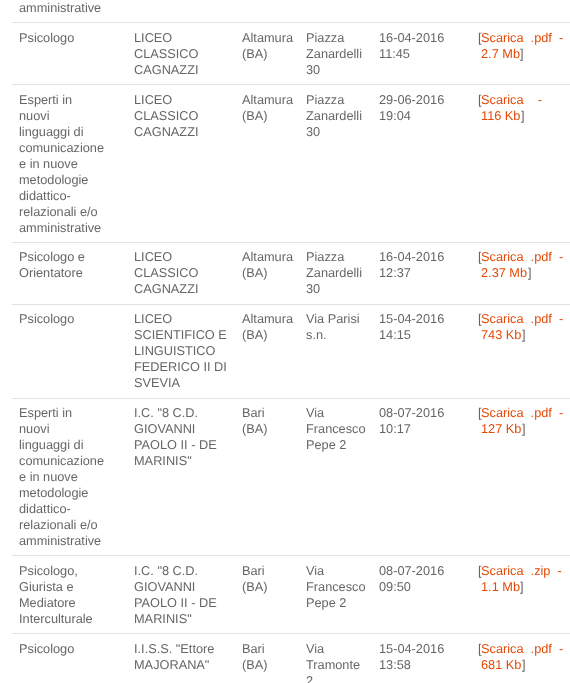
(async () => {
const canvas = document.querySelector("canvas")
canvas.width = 570
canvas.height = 683
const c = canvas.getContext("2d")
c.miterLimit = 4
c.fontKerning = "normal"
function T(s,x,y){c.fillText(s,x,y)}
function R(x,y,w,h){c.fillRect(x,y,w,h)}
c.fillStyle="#fff"
R(0,0,570,683)
c.font="12.75px Liberation Sans"
c.fillStyle="#666"
T("amministrative",19,12)
c.fillStyle="#e1e1e1"
R(12,22,558,1)
c.fillStyle="#666"
T("Psicologo",19,42)
T("LICEO",134,42)
T("CLASSICO",134,58)
T("CAGNAZZI",134,74)
T("Altamura",242,42)
T("(BA)",242,58)
T("Piazza",306,42)
T("Zanardelli",306,58)
T("30",306,74)
T("16-04-2016",379,42)
T("11:45",379,58)
c.fillStyle="#e1e1e1"
R(12,84,558,1)
c.fillStyle="#666"
T("[",478,42)
c.fillStyle="#e44906"
T("Scarica  .pdf  -",481,42)
T("2.7 Mb",481,58)
c.fillStyle="#666"
T("]",520,58)
T("Esperti in",19,104)
T("nuovi",19,120)
T("linguaggi di",19,136)
T("comunicazione",19,152)
T("e in nuove",19,168)
T("metodologie",19,184)
T("didattico-",19,200)
T("relazionali e/o",19,216)
T("amministrative",19,232)
T("LICEO",134,104)
T("CLASSICO",134,120)
T("CAGNAZZI",134,136)
T("Altamura",242,104)
T("(BA)",242,120)
T("Piazza",306,104)
T("Zanardelli",306,120)
T("30",306,136)
T("29-06-2016",379,104)
T("19:04",379,120)
c.fillStyle="#e1e1e1"
R(12,242,558,1)
c.fillStyle="#666"
T("[",478,104)
c.fillStyle="#e44906"
T("Scarica    -",481,104)
T("116 Kb",481,120)
c.fillStyle="#666"
T("]",521,120)
T("Psicologo e",19,261)
T("Orientatore",19,277)
T("LICEO",134,261)
T("CLASSICO",134,277)
T("CAGNAZZI",134,293)
T("Altamura",242,261)
T("(BA)",242,277)
T("Piazza",306,261)
T("Zanardelli",306,277)
T("30",306,293)
T("16-04-2016",379,261)
T("12:37",379,277)
c.fillStyle="#e1e1e1"
R(12,304,558,1)
c.fillStyle="#666"
T("[",478,261)
c.fillStyle="#e44906"
T("Scarica  .pdf  -",481,261)
T("2.37 Mb",481,277)
c.fillStyle="#666"
T("]",528,277)
T("Psicologo",19,323)
T("LICEO",134,323)
T("SCIENTIFICO E",134,339)
T("LINGUISTICO",134,355)
T("FEDERICO II DI",134,371)
T("SVEVIA",134,387)
T("Altamura",242,323)
T("(BA)",242,339)
T("Via Parisi",306,323)
T("s.n.",306,339)
T("15-04-2016",379,323)
T("14:15",379,339)
c.fillStyle="#e1e1e1"
R(12,398,558,1)
c.fillStyle="#666"
T("[",478,323)
c.fillStyle="#e44906"
T("Scarica  .pdf  -",481,323)
T("743 Kb",481,339)
c.fillStyle="#666"
T("]",522,339)
T("Esperti in",19,417)
T("nuovi",19,433)
T("linguaggi di",19,449)
T("comunicazione",19,465)
T("e in nuove",19,481)
T("metodologie",19,497)
T("didattico-",19,513)
T("relazionali e/o",19,529)
T("amministrative",19,545)
T("I.C. \"8 C.D.",134,417)
T("GIOVANNI",134,433)
T("PAOLO II - DE",134,449)
T("MARINIS\"",134,465)
T("Bari",242,417)
T("(BA)",242,433)
T("Via",306,417)
T("Francesco",306,433)
T("Pepe 2",306,449)
T("08-07-2016",379,417)
T("10:17",379,433)
c.fillStyle="#e1e1e1"
R(12,555,558,1)
c.fillStyle="#666"
T("[",478,417)
c.fillStyle="#e44906"
T("Scarica  .pdf  -",481,417)
T("127 Kb",481,433)
c.fillStyle="#666"
T("]",522,433)
T("Psicologo,",19,575)
T("Giurista e",19,591)
T("Mediatore",19,607)
T("Interculturale",19,623)
T("I.C. \"8 C.D.",134,575)
T("GIOVANNI",134,591)
T("PAOLO II - DE",134,607)
T("MARINIS\"",134,623)
T("Bari",242,575)
T("(BA)",242,591)
T("Via",306,575)
T("Francesco",306,591)
T("Pepe 2",306,607)
T("08-07-2016",379,575)
T("09:50",379,591)
c.fillStyle="#e1e1e1"
R(12,633,558,1)
c.fillStyle="#666"
T("[",478,575)
c.fillStyle="#e44906"
T("Scarica  .zip  -",481,575)
T("1.1 Mb",481,591)
c.fillStyle="#666"
T("]",520,591)
T("Psicologo",19,653)
T("I.I.S.S. \"Ettore",134,653)
T("MAJORANA\"",134,669)
T("Bari",242,653)
T("(BA)",242,669)
T("Via",306,653)
T("Tramonte",306,669)
T("2",306,685)
T("15-04-2016",379,653)
T("13:58",379,669)
T("[",478,653)
c.fillStyle="#e44906"
T("Scarica  .pdf  -",481,653)
T("681 Kb",481,669)
c.fillStyle="#666"
T("]",522,669)
})()
